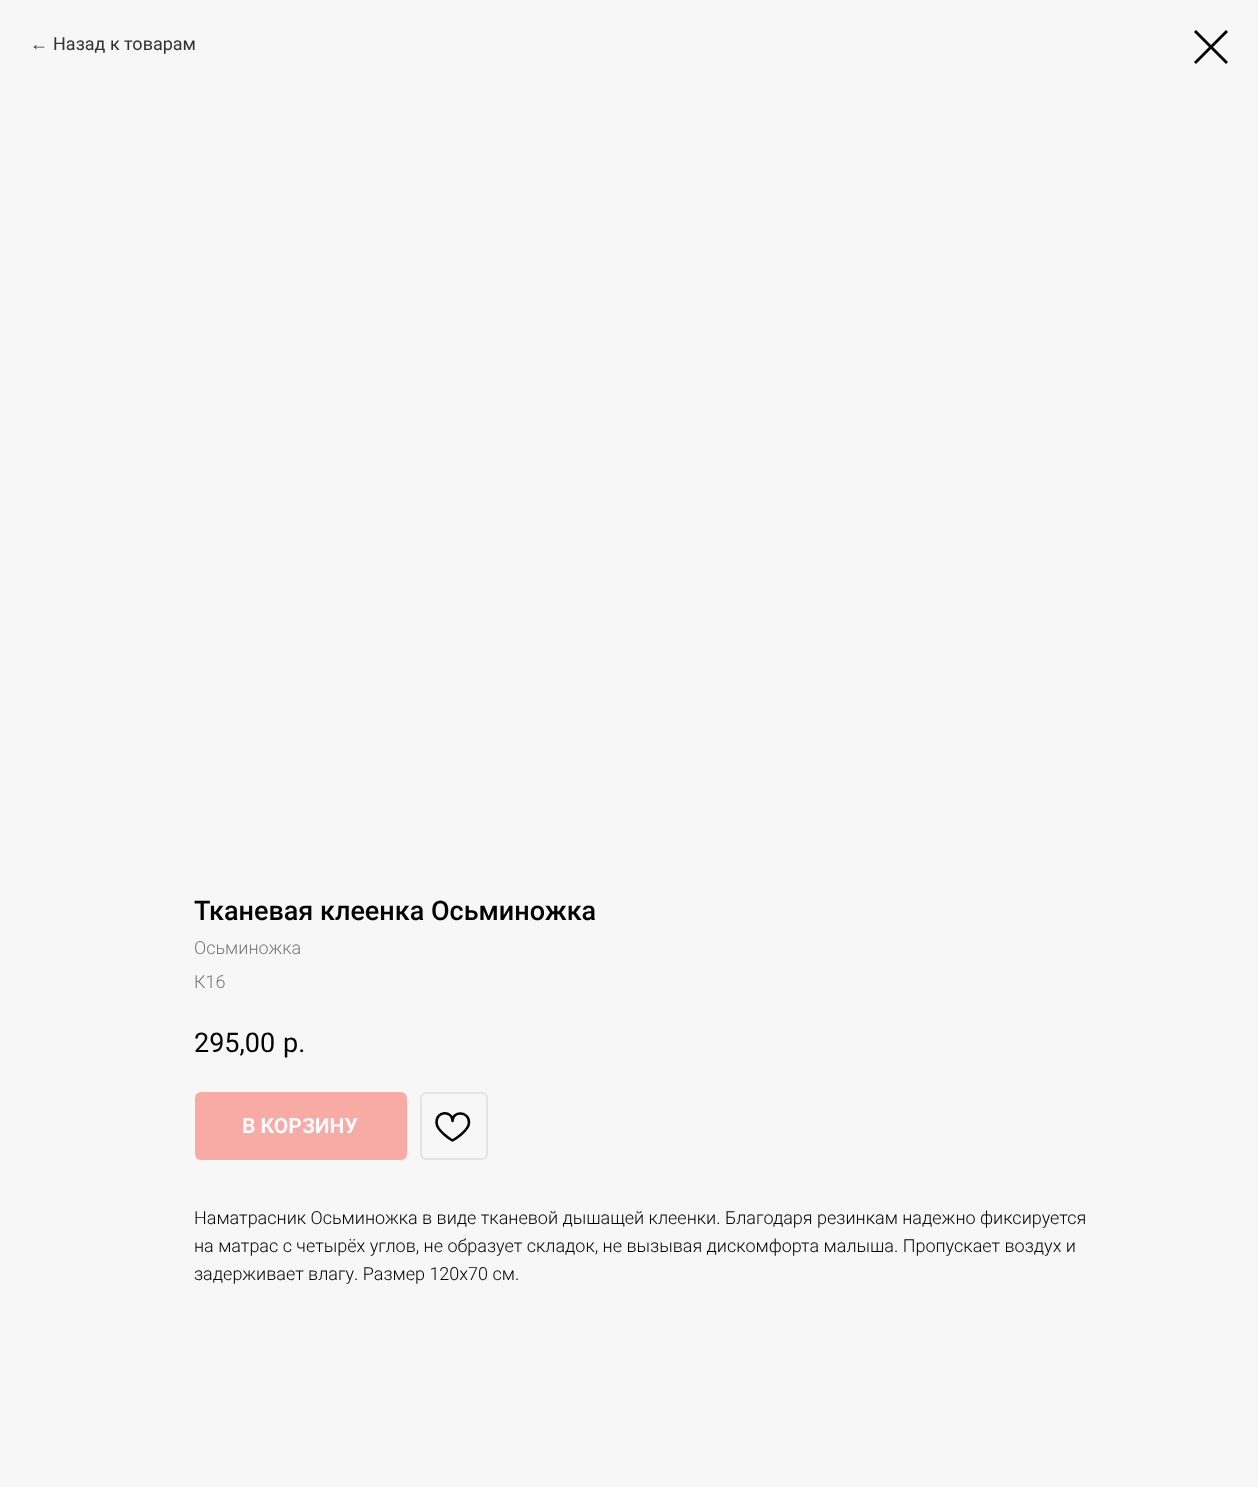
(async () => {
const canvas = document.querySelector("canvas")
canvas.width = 1258
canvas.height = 1487
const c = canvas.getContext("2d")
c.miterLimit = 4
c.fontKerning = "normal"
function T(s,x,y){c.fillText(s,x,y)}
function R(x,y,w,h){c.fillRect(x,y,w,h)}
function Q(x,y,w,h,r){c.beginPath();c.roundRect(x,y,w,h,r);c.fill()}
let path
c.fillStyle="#f7f7f7"
R(0,0,1258,1487)
c.font="18px Liberation Sans"
c.fillStyle="#313131"
T("←",30,50)
c.font="18px Roboto"
T("Назад к товарам",53,50)
c.fillStyle="#000"
path = new Path2D("M1194 32l2-2l32 32l-2 2z")
c.fill(path,"evenodd")
path = new Path2D("M1226 30l2 2l-32 32l-2-2z")
c.fill(path,"evenodd")
c.font="500 27px Roboto"
T("Тканевая клеенка Осьминожка",194,920)
c.font="300 18px Roboto"
c.fillStyle="#777"
T("Осьминожка",194,954)
T("К16",194,988)
c.font="27px Roboto"
c.fillStyle="#000"
T("295,00",194,1052)
T("р.",283,1052)
c.fillStyle="#f8aaa4"
Q(195,1092,212,68,6)
c.font="bold 21px Roboto"
c.fillStyle="#fafafa"
T("В КОРЗИНУ",242,1133)
c.beginPath()
c.roundRect(421,1093,66,66,5)
c.strokeStyle="#e4e4e4"
c.lineWidth=2
c.stroke()
path = new Path2D("M469 1122.5c0 8.5-16.5 18-16.5 18c0 0-16-9.5-16-18c0-12 16-12 16-1.5c0-10.5 16.5-10 16.5 1.5z")
c.strokeStyle="#000"
c.lineWidth=2.5
c.lineJoin="round"
c.stroke(path)
c.font="300 18px Roboto"
c.fillStyle="#000"
T("Наматрасник Осьминожка в виде тканевой дышащей клеенки. Благодаря резинкам надежно фиксируется",194,1224)
T("на матрас с четырёх углов, не образует складок, не вызывая дискомфорта малыша. Пропускает воздух и",194,1252)
T("задерживает влагу. Размер 120х70 см.",194,1280)
})()
